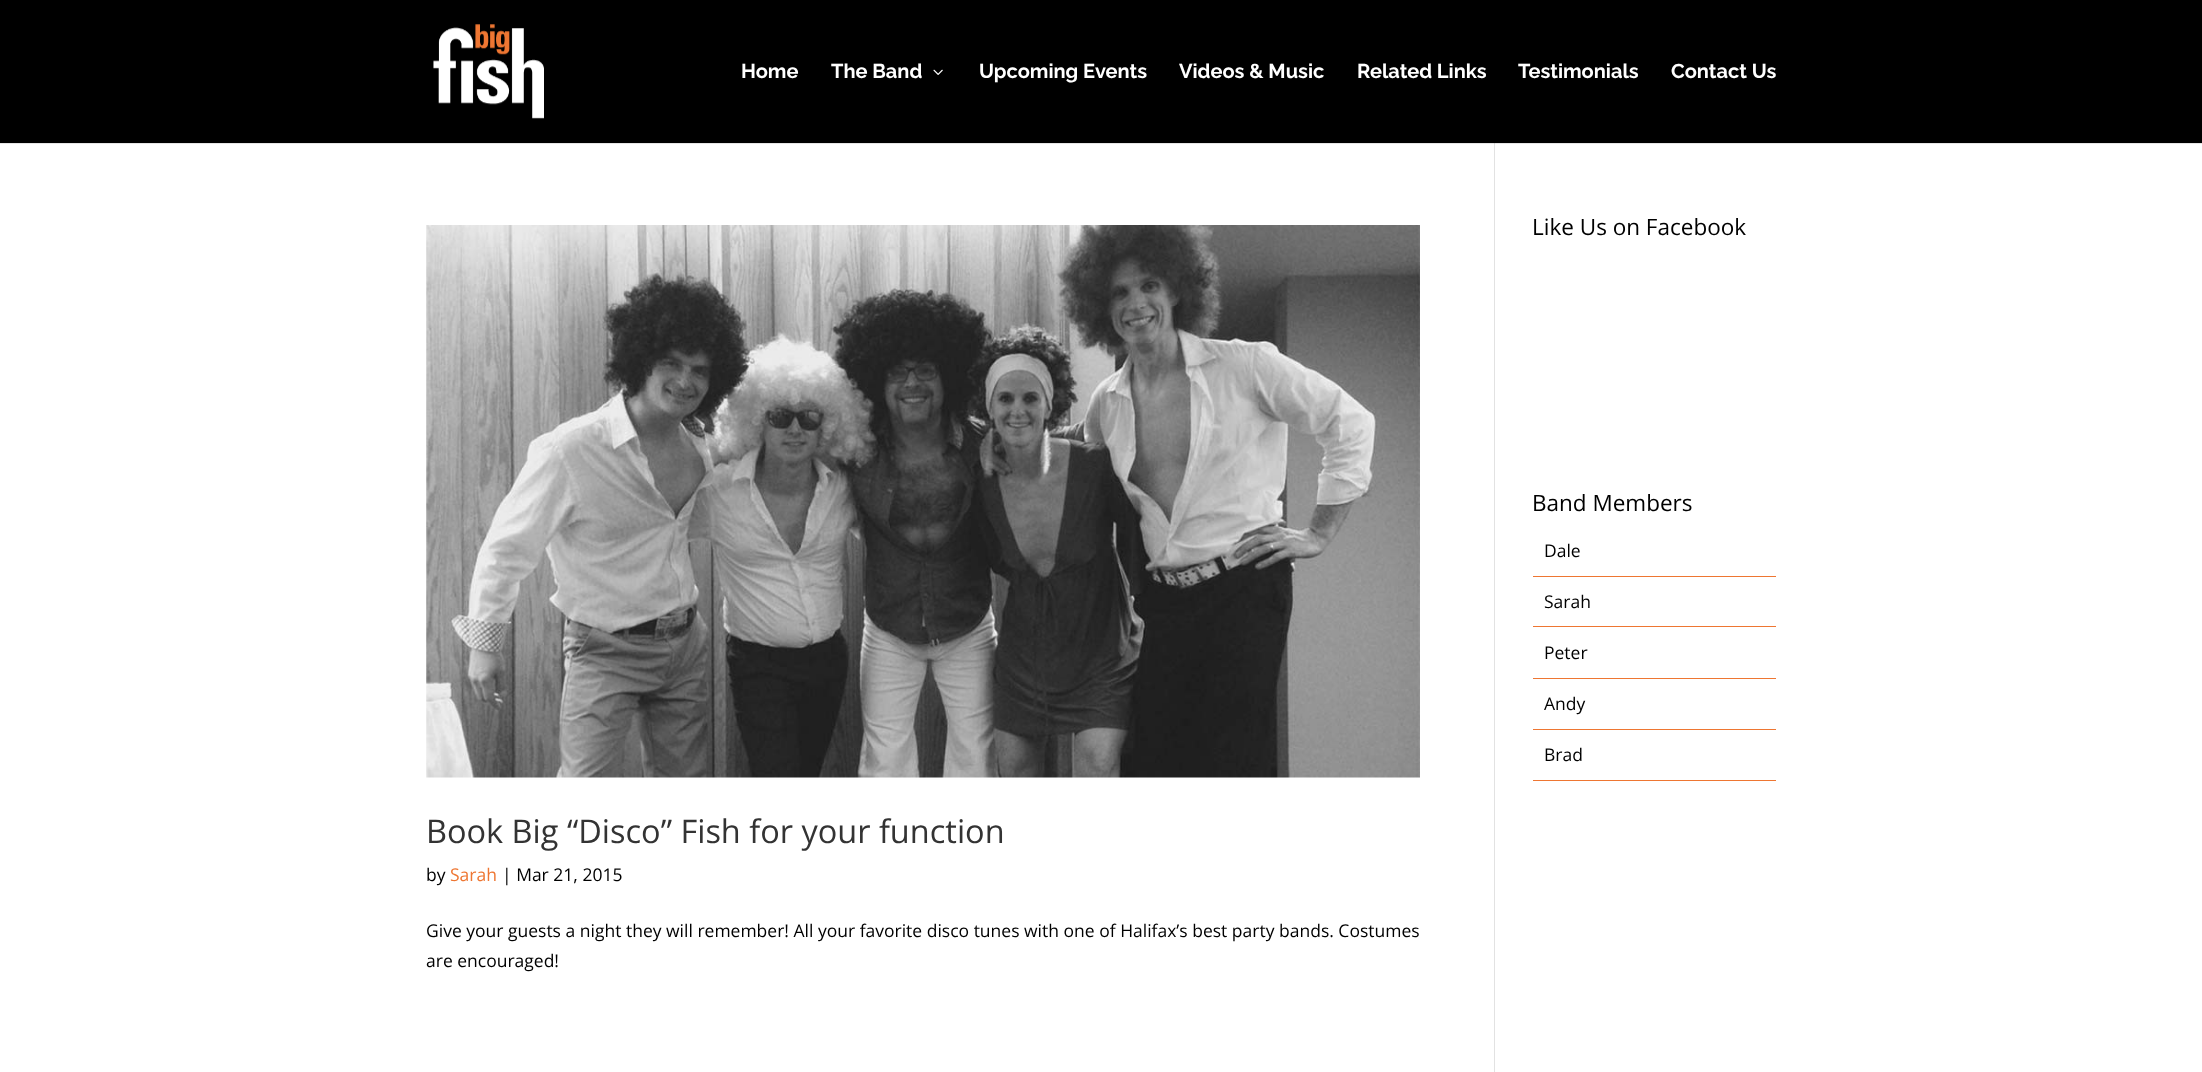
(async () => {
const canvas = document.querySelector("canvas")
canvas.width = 2202
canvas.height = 1072
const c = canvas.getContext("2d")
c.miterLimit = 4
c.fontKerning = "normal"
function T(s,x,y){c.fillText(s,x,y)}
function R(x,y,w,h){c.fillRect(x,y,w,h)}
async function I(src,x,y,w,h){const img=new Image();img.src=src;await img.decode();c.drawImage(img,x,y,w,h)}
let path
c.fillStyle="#fff"
R(0,0,2202,1072)
c.fillStyle="#e2e2e2"
R(1494,143,1,929)
c.fillStyle="#0000001a"
path = new Path2D("M0 142v2h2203v-143h-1v141z")
c.fill(path)
c.fillStyle="#000"
R(0,0,2202,143)
await I("1.png",433,24,111,95)
c.font="bold 20px Raleway"
c.fillStyle="#fff"
T("Home",741,78)
T("The Band",831,78)
await I("2.png",933,69,10,6)
T("Upcoming Events",979,78)
T("Videos & Music",1179,78)
T("Related Links",1357,78)
T("Testimonials",1518,78)
T("Contact Us",1671,78)
c.font="22.5px Open Sans"
c.fillStyle="#000"
T("Like Us on Facebook",1532,235)
T("Band Members",1532,511)
c.fillStyle="#ee7632"
R(1533,576,243,1)
c.font="17.5px Open Sans"
c.fillStyle="#000"
T("Dale",1544,557)
c.fillStyle="#ee7632"
R(1533,626,243,1)
c.fillStyle="#000"
T("Sarah",1544,608)
c.fillStyle="#ee7632"
R(1533,678,243,1)
c.fillStyle="#000"
T("Peter",1544,659)
c.fillStyle="#ee7632"
R(1533,729,243,1)
c.fillStyle="#000"
T("Andy",1544,710)
c.fillStyle="#ee7632"
R(1533,780,243,1)
c.fillStyle="#000"
T("Brad",1544,761)
await I("3.png",426,225,994,553)
c.font="32.5px Open Sans"
c.fillStyle="#333"
T("Book Big “Disco” Fish for your function",426,843)
c.font="17.5px Open Sans"
c.fillStyle="#000"
T("by",426,881)
c.fillStyle="#ee7632"
T("Sarah",450,881)
c.fillStyle="#000"
T("| Mar 21, 2015",502,881)
T("Give your guests a night they will remember! All your favorite disco tunes with one of Halifax’s best party bands. Costumes",426,937)
T("are encouraged!",426,967)
})()
